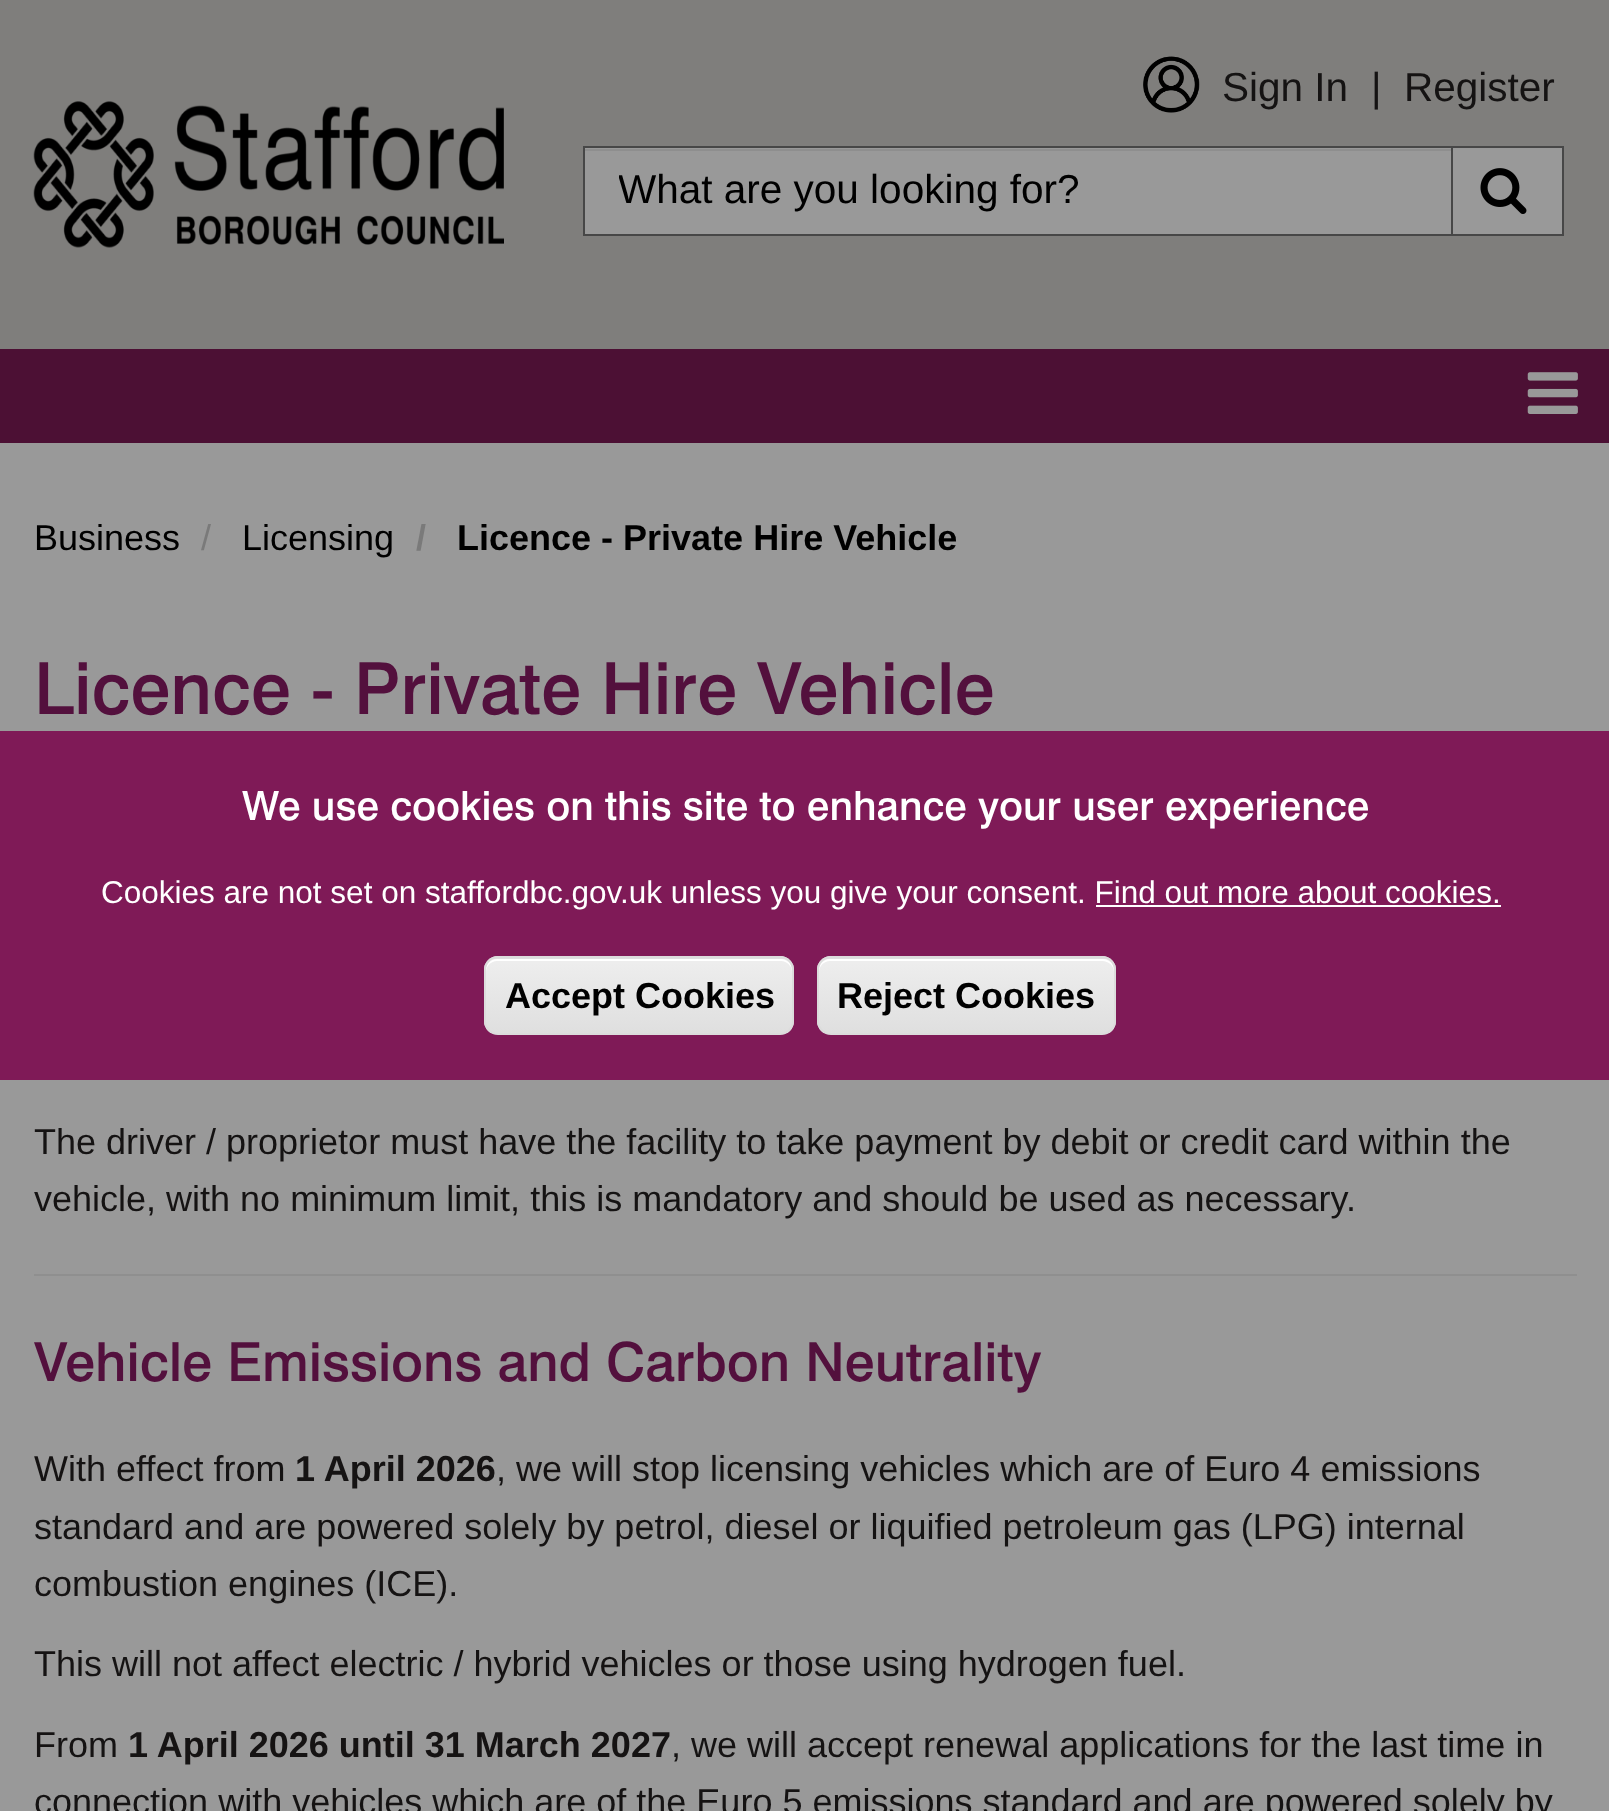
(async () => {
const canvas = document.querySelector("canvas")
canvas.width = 1609
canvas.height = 1811
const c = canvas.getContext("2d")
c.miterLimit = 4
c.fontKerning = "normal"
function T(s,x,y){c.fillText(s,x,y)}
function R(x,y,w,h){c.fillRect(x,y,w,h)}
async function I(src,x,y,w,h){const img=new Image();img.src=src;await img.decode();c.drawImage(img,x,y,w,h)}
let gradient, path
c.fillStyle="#999"
R(0,0,1609,1811)
c.fillStyle="#7f7e7c"
R(0,0,1609,349)
await I("1.png",33,101,471,147)
await I("2.png",1143,56,57,57)
c.font="40.5px Liberation Sans"
c.fillStyle="#151313"
T("Sign In",1222,101)
T("|",1371,101)
T("Register",1404,101)
c.fillStyle="#999"
R(585,148,866,86)
c.fillStyle="#8e8e8e"
R(585,149,866,2)
c.strokeStyle="#474747"
c.lineWidth=2
c.strokeRect(584,147,869,88)
c.save()
c.beginPath()
c.rect(619,167,823,47)
c.clip()
c.fillStyle="#000"
T("What are you looking for?",618,203)
c.restore()
c.fillStyle="#999"
c.beginPath()
c.rect(1452,147,111,88)
c.fill()
c.stroke()
await I("3.png",1480,168,47,46)
c.fillStyle="#4c1034"
R(0,349,1609,94)
await I("4.png",1527,372,51,42)
c.font="36px Liberation Sans"
c.fillStyle="#000"
T("Business",34,550)
c.fillStyle="#7a7a7a"
T("/",201,550)
c.fillStyle="#000"
T("Licensing",242,550)
c.font="bold 36px Liberation Sans"
c.fillStyle="#7a7a7a"
T("/",416,550)
c.fillStyle="#000"
T("Licence - Private Hire Vehicle",457,550)
c.font="500 72px 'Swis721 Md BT'"
c.fillStyle="#53103d"
T("Licence - Private Hire Vehicle",34,714)
c.font="36px Liberation Sans"
c.fillStyle="#151313"
T("The driver / proprietor must have the facility to take payment by debit or credit card within the",34,1154)
T("vehicle, with no minimum limit, this is mandatory and should be used as necessary.",34,1211)
c.fillStyle="#8f8f8f"
R(34,1274,1543,2)
c.font="500 54px 'Swis721 Md BT'"
c.fillStyle="#53103d"
T("Vehicle Emissions and Carbon Neutrality",34,1381)
c.font="36px Liberation Sans"
c.fillStyle="#151313"
T("With effect from",34,1481)
c.font="bold 36px Liberation Sans"
T("1 April 2026",295,1481)
c.font="36px Liberation Sans"
T(", we will stop licensing vehicles which are of Euro 4 emissions",496,1481)
T("standard and are powered solely by petrol, diesel or liquified petroleum gas (LPG) internal",34,1539)
T("combustion engines (ICE).",34,1596)
T("This will not affect electric / hybrid vehicles or those using hydrogen fuel.",34,1676)
T("From",34,1757)
c.font="bold 36px Liberation Sans"
T("1 April 2026 until 31 March 2027",128,1757)
c.font="36px Liberation Sans"
T(", we will accept renewal applications for the last time in",671,1757)
T("connection with vehicles which are of the Euro 5 emissions standard and are powered solely by",34,1814)
c.fillStyle="#7f1a57"
R(0,731,1609,349)
c.font="500 40.5px 'Swis721 Md BT'"
c.fillStyle="#fff"
T("We use cookies on this site to enhance your user experience",242,820)
c.font="31.5px Liberation Sans"
T("Cookies are not set on staffordbc.gov.uk unless you give your consent. Find out more about cookies.",101,903)
R(1096,905,405,2)
c.save()
c.beginPath()
c.roundRect(484,956,310,79,14)
c.clip()
gradient = c.createLinearGradient(639,884,639,959)
gradient.addColorStop(.05,"#ededed")
gradient.addColorStop(1,"#dfdfdf")
c.fillStyle = gradient
R(484,956,310,3)
gradient = c.createLinearGradient(639,959,639,1033)
gradient.addColorStop(.05,"#ededed")
gradient.addColorStop(1,"#dfdfdf")
c.fillStyle = gradient
R(484,959,310,74)
c.restore()
path = new Path2D("M497 961h284c6 0 11 5 11 11v-2c0-6-5-11-11-11h-284c-6 0-11 5-11 11v2c0-6 5-11 11-11z")
c.fill(path)
c.beginPath()
c.roundRect(485,957,308,77,13)
c.strokeStyle="#dcdcdc"
c.stroke()
c.font="bold 36px Liberation Sans"
c.fillStyle="#000"
T("Accept Cookies",505,1008)
c.save()
c.beginPath()
c.roundRect(817,956,299,79,14)
c.clip()
gradient = c.createLinearGradient(966,884,966,959)
gradient.addColorStop(.05,"#ededed")
gradient.addColorStop(1,"#dfdfdf")
c.fillStyle = gradient
R(817,956,299,3)
gradient = c.createLinearGradient(966,959,966,1033)
gradient.addColorStop(.05,"#ededed")
gradient.addColorStop(1,"#dfdfdf")
c.fillStyle = gradient
R(817,959,299,74)
c.restore()
c.fillStyle="#fff"
path = new Path2D("M830 961h272c7 0 12 5 12 11v-2c0-6-5-11-11-11h-273c-6 0-11 5-11 11v2c0-6 5-11 11-11z")
c.fill(path)
c.beginPath()
c.roundRect(818,957,297,77,13)
c.stroke()
c.fillStyle="#000"
T("Reject Cookies",837,1008)
})()
